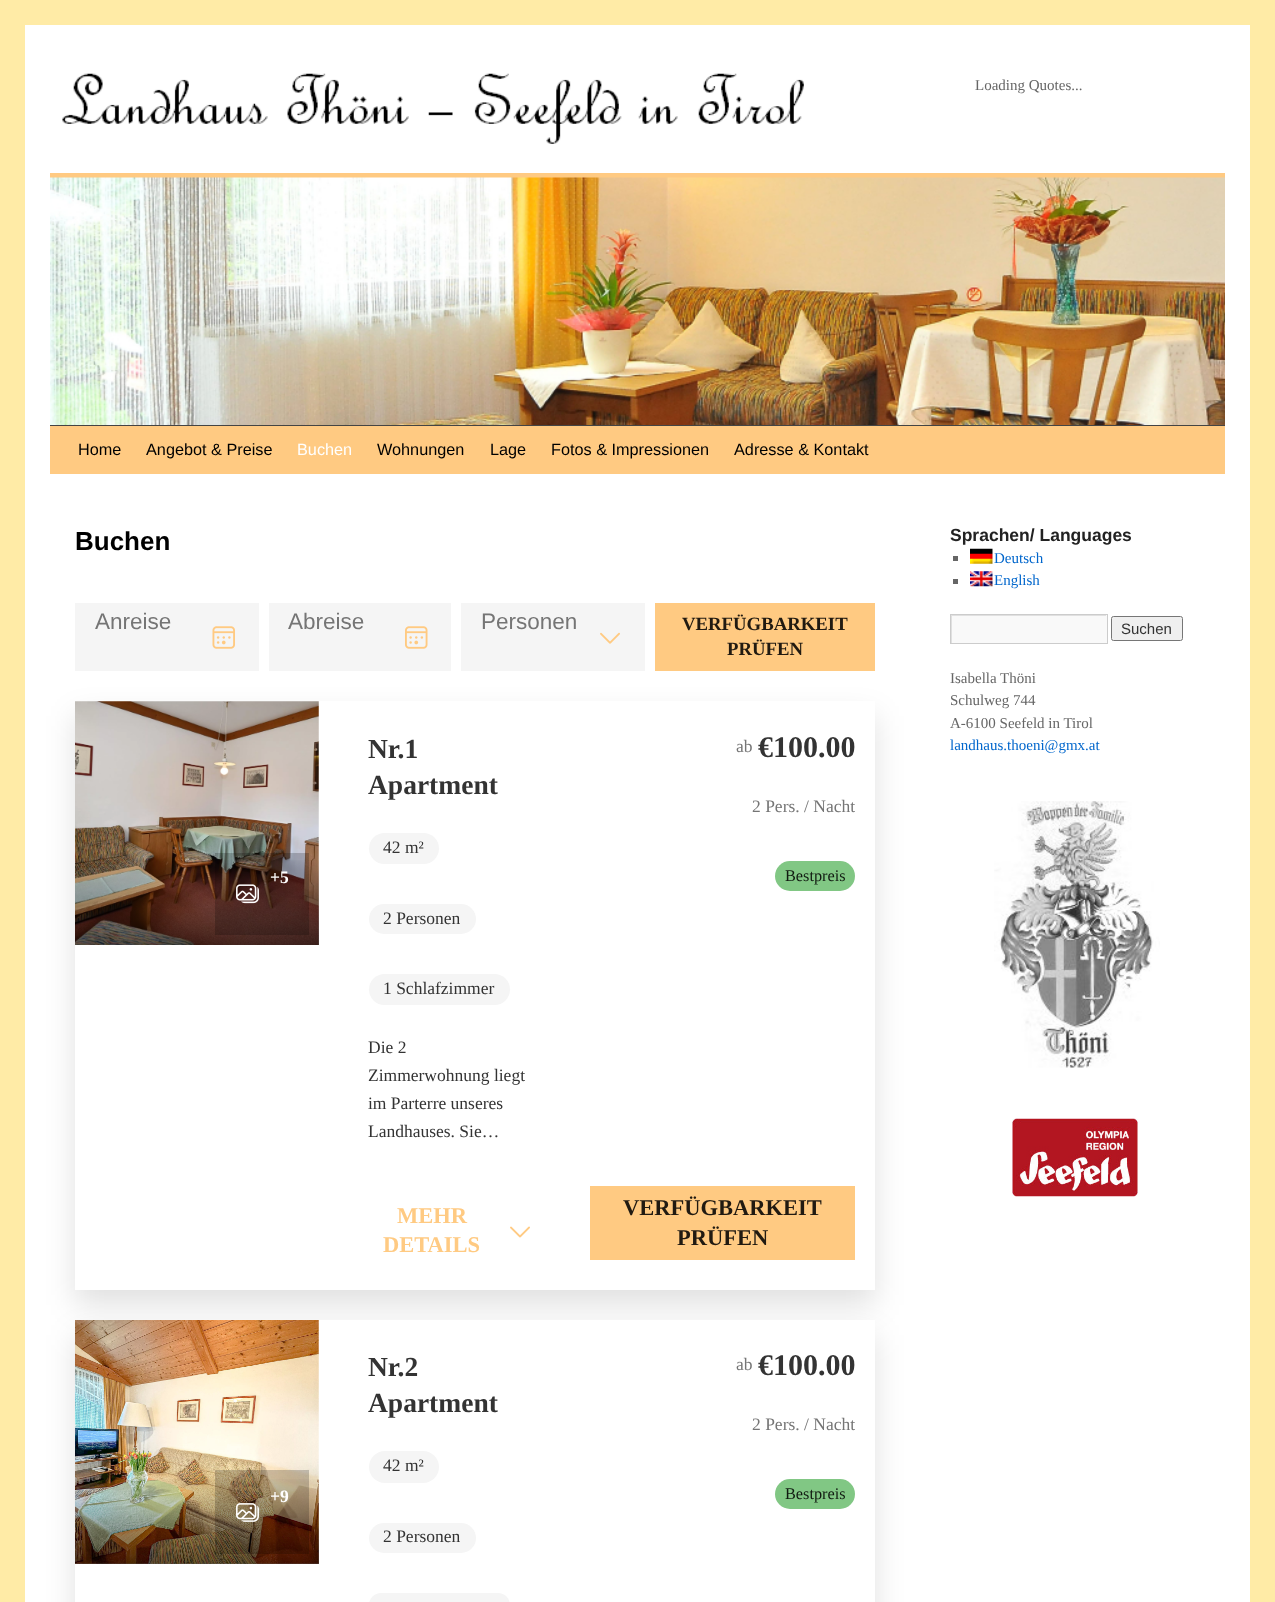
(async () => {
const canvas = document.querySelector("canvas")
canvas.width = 1275
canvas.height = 1602
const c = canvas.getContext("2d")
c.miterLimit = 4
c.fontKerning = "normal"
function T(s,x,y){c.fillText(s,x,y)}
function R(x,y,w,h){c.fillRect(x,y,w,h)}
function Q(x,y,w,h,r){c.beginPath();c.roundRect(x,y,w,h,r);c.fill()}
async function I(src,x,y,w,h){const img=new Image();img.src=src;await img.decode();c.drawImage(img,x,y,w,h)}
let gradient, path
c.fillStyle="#ffeba6"
R(0,0,1275,1602)
c.fillStyle="#fff"
R(25,25,1225,1577)
await I("1.png",62,73,742,71)
c.font="15px Liberation Serif"
c.fillStyle="#666"
T("Loading Quotes...",975,90)
c.fillStyle="#ffca82"
R(50,173,1175,5)
c.fillStyle="#444"
R(50,425,1175,1)
await I("2.png",50,177,1175,248)
c.fillStyle="#ffca82"
R(50,426,1175,48)
c.font="16.25px Liberation Sans"
c.fillStyle="#000"
T("Home",78,455)
T("Angebot & Preise",146,455)
c.fillStyle="#fff"
T("Buchen",297,455)
c.fillStyle="#000"
T("Wohnungen",377,455)
T("Lage",490,455)
T("Fotos & Impressionen",551,455)
T("Adresse & Kontakt",734,455)
c.font="bold 26px Liberation Sans"
T("Buchen",75,550)
c.fillStyle="#0000001f"
c.filter="blur(15px)"
c.beginPath()
c.rect(75,716,800,589)
c.fill()
c.filter="none"
c.fillStyle="#f5f5f5"
R(75,603,184,68)
c.font="22.5px Liberation Sans"
c.fillStyle="#757575"
T("Anreise",95,629)
await I("3.png",212,626,23,23)
c.fillStyle="#f5f5f5"
R(269,603,182,68)
c.fillStyle="#757575"
T("Abreise",288,629)
await I("4.png",405,626,23,23)
c.fillStyle="#f5f5f5"
R(461,603,184,68)
c.fillStyle="#757575"
T("Personen",481,629)
await I("5.png",600,632,20,12)
c.fillStyle="#ffca82"
R(655,603,220,68)
c.font="bold 18.75px Liberation Serif"
c.fillStyle="#211a11"
T("VERFÜGBARKEIT",682,630)
T("PRÜFEN",727,655)
c.fillStyle="#fff"
R(75,701,800,589)
await I("6.png",75,701,244,244)
gradient = c.createLinearGradient(197,701,197,945)
gradient.addColorStop(.64,"#00000000")
gradient.addColorStop(1,"#00000099")
c.fillStyle = gradient
R(75,860,244,85)
c.fillStyle="#00000033"
R(215,853,94,82)
c.font="bold 17.5px Liberation Serif"
c.fillStyle="#fff"
T("+5",270,883)
await I("7.png",236,884,23,20)
c.font="bold 27.5px Liberation Serif"
c.fillStyle="#333"
T("Nr.1",368,758)
T("Apartment",368,794)
c.fillStyle="#f5f5f5"
Q(369,833,70,31,15.5)
c.font="17.5px Liberation Serif"
c.fillStyle="#333"
T("42 m²",383,853)
c.fillStyle="#f5f5f5"
Q(369,904,107,30,15)
c.fillStyle="#333"
T("2 Personen",383,924)
c.fillStyle="#f5f5f5"
Q(369,974,141,31,15.5)
c.fillStyle="#333"
T("1 Schlafzimmer",383,994)
c.fillStyle="#757575"
T("ab",736,752)
c.font="bold 30px Liberation Serif"
c.fillStyle="#333"
T("€100.00",758,757)
c.font="17.5px Liberation Serif"
c.fillStyle="#757575"
T("2 Pers. / Nacht",752,812)
c.fillStyle="#81c784"
Q(775,861,80,30,15)
c.font="16.25px Liberation Serif"
c.fillStyle="#111a11"
T("Bestpreis",785,881)
c.font="17.5px Liberation Serif"
c.fillStyle="#333"
T("Die 2",368,1053)
T("Zimmerwohnung liegt",368,1081)
T("im Parterre unseres",368,1109)
T("Landhauses. Sie…",368,1137)
c.font="bold 22.5px Liberation Serif"
c.fillStyle="#ffca82"
T("MEHR",397,1223)
await I("8.png",510,1226,20,12)
T("DETAILS",383,1252)
R(590,1186,265,74)
c.fillStyle="#211a11"
T("VERFÜGBARKEIT",623,1215)
T("PRÜFEN",677,1245)
c.fillStyle="#0000001f"
c.filter="blur(15px)"
c.beginPath()
c.rect(75,1335,800,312)
c.fill()
c.filter="none"
c.fillStyle="#fff"
R(75,1320,800,282)
await I("9.png",75,1320,244,244)
gradient = c.createLinearGradient(197,1320,197,1564)
gradient.addColorStop(.64,"#00000000")
gradient.addColorStop(1,"#00000099")
c.fillStyle = gradient
R(75,1479,244,85)
c.fillStyle="#00000033"
R(215,1470,94,84)
c.font="bold 17.5px Liberation Serif"
c.fillStyle="#fff"
T("+9",270,1502)
await I("10.png",236,1503,23,19)
c.font="bold 27.5px Liberation Serif"
c.fillStyle="#333"
T("Nr.2",368,1376)
T("Apartment",368,1412)
c.fillStyle="#f5f5f5"
Q(369,1451,70,32,16)
c.font="17.5px Liberation Serif"
c.fillStyle="#333"
T("42 m²",383,1471)
c.fillStyle="#f5f5f5"
Q(369,1523,107,30,15)
c.fillStyle="#333"
T("2 Personen",383,1542)
c.fillStyle="#f5f5f5"
Q(369,1593,141,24,15)
c.fillStyle="#757575"
T("ab",736,1370)
c.font="bold 30px Liberation Serif"
c.fillStyle="#333"
T("€100.00",758,1375)
c.font="17.5px Liberation Serif"
c.fillStyle="#757575"
T("2 Pers. / Nacht",752,1430)
c.fillStyle="#81c784"
Q(775,1479,80,30,15)
c.font="16.25px Liberation Serif"
c.fillStyle="#111a11"
T("Bestpreis",785,1499)
c.font="bold 17.5px Liberation Sans"
c.fillStyle="#222"
T("Sprachen/ Languages",950,541)
c.fillStyle="#666"
R(953,556,5,5)
await I("11.png",970,548,23,16)
c.font="15px Liberation Serif"
c.fillStyle="#06c"
T("Deutsch",994,563)
c.fillStyle="#666"
R(953,579,5,5)
await I("12.png",970,571,23,16)
c.fillStyle="#06c"
T("English",994,585)
c.fillStyle="#f9f9f9"
R(952,615,155,28)
c.save()
c.beginPath()
c.rect(951,615,155,28)
c.clip()
c.fillStyle="#e0e0e0"
path = new Path2D("M828 491h402v275h-402zm124 125h156v28h-156z")
c.fill(path,"evenodd")
c.restore()
c.strokeStyle="#ccc"
c.strokeRect(950.5,614.5,157,29)
c.fillStyle="#efefef"
c.beginPath()
c.roundRect(1111.5,616.5,71,24,2)
c.fill()
c.strokeStyle="#767676"
c.stroke()
c.font="15px Liberation Sans"
c.fillStyle="#333"
T("Suchen",1121,634)
c.font="15px Liberation Serif"
c.fillStyle="#666"
T("Isabella Thöni",950,683)
T("Schulweg 744",950,705)
T("A-6100 Seefeld in Tirol",950,728)
c.fillStyle="#06c"
T("landhaus.thoeni@gmx.at",950,750)
await I("13.png",994,801,166,267)
await I("14.png",1012,1118,126,79)
})()
